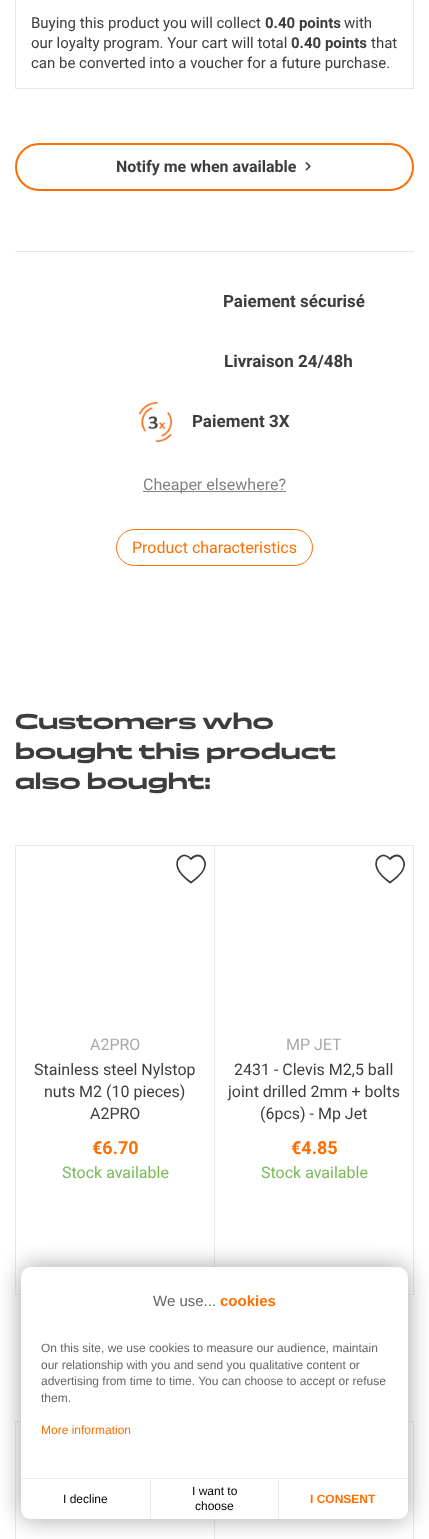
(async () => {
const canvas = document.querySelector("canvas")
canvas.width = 429
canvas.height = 1539
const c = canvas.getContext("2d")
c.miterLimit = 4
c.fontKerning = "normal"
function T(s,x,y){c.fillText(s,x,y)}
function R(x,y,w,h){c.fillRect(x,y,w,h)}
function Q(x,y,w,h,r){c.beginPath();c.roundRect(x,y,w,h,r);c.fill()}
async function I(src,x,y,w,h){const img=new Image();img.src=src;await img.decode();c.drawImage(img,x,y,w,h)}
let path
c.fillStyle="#fff"
R(0,0,429,1539)
c.strokeStyle="#e6e7e8"
c.strokeRect(15.5,-.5,398,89)
c.font="15px Roboto"
c.fillStyle="#3d3d3d"
T("Buying this product you will collect",31,28)
c.font="bold 15px Roboto"
T("0.40 points",265,28)
c.font="15px Roboto"
T("with",344,28)
T("our loyalty program. Your cart will total",31,48)
c.font="bold 15px Roboto"
T("0.40 points",291,48)
c.font="15px Roboto"
T("that",371,48)
T("can be converted into a voucher for a future purchase.",31,68)
c.beginPath()
c.roundRect(16,144,397,46,23)
c.strokeStyle="#ff6e00"
c.lineWidth=2
c.stroke()
c.font="bold 16px Roboto"
T("Notify me when available",116,172)
await I("1.png",305,162,6,9)
c.fillStyle="#e6e7e8"
R(15,251,399,1)
c.font="bold 17px Roboto"
c.fillStyle="#3d3d3d"
T("Paiement sécurisé",223,307)
T("Livraison 24/48h",224,367)
await I("2.png",139,402,33,40)
T("Paiement 3X",192,427)
c.fillStyle="#818284"
R(143,491,143,1)
c.font="16px Roboto"
T("Cheaper elsewhere?",143,490)
c.beginPath()
c.roundRect(116.5,529.5,196,36,18)
c.lineWidth=1
c.stroke()
c.fillStyle="#ff6e00"
T("Product characteristics",132,553)
c.font="bold 22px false"
c.fillStyle="#3d3d3d"
T("Customers who",15,729)
T("bought this product",15,759)
T("also bought:",15,789)
c.strokeStyle="#e6e7e8"
c.strokeRect(15.5,845.5,199,449)
path = new Path2D("M197.5 855.5c2.5 0 4.5 1 6 3.5c6 9-6 19-12.5 23.5c-5-3.5-10.5-8-13-14c-4-9.5 6-18 13-9.5c2-2 3.5-3.5 6.5-3.5")
c.strokeStyle="#3c3c3c"
c.lineWidth=1.8
c.lineCap="round"
c.lineJoin="round"
c.stroke(path)
c.font="16px Roboto"
c.fillStyle="#a7a9ab"
T("A2PRO",90,1050)
c.fillStyle="#3d3d3d"
T("Stainless steel Nylstop",34,1075)
T("nuts M2 (10 pieces)",44,1097)
T("A2PRO",90,1119)
c.font="bold 18px Roboto"
c.fillStyle="#ff6e00"
T("€6.70",92,1154)
c.font="16px Roboto"
c.fillStyle="#78b956"
T("Stock available",62,1178)
c.strokeStyle="#e6e7e8"
c.lineWidth=1
c.lineJoin="miter"
c.strokeRect(214.5,845.5,199,449)
path = new Path2D("M396.5 855.5c2.5 0 4.5 1 6 3.5c6 9-6 19-12.5 23.5c-5-3.5-10.5-8-13-14c-4-9.5 6-18 13-9.5c2-2 3.5-3.5 6.5-3.5")
c.strokeStyle="#3c3c3c"
c.lineWidth=1.8
c.lineJoin="round"
c.stroke(path)
c.fillStyle="#a7a9ab"
T("MP JET",286,1050)
c.fillStyle="#3d3d3d"
T("2431 - Clevis M2,5 ball",234,1075)
T("joint drilled 2mm + bolts",228,1097)
T("(6pcs) - Mp Jet",260,1119)
c.font="bold 18px Roboto"
c.fillStyle="#ff6e00"
T("€4.85",291,1154)
c.font="16px Roboto"
c.fillStyle="#78b956"
T("Stock available",261,1178)
c.strokeStyle="#e6e7e8"
c.lineWidth=1
c.lineJoin="miter"
c.strokeRect(15.5,1421.5,199,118)
c.strokeRect(214.5,1421.5,199,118)
c.fillStyle="#a3a3a3"
c.filter="blur(12.5px)"
c.beginPath()
c.roundRect(21,1267,387,252,10)
c.fill()
c.filter="none"
c.fillStyle="#fff"
Q(21,1267,387,252,10)
c.font="15px Liberation Sans"
c.fillStyle="#666"
T("We use...",153,1306)
c.font="bold 15px Liberation Sans"
c.fillStyle="#ff6e00"
T("cookies",220,1306)
c.font="12px Liberation Sans"
c.fillStyle="#666"
T("On this site, we use cookies to measure our audience, maintain",41,1352)
T("our relationship with you and send you qualitative content or",41,1369)
T("advertising from time to time. You can choose to accept or refuse",41,1385)
T("them.",41,1402)
c.fillStyle="#ff6e00"
T("More information",41,1434)
c.fillStyle="#ededed"
R(21,1478,387,1)
c.fillStyle="#fff"
c.beginPath()
c.roundRect(21,1479,129,40,[0,0,0,10])
c.fill()
c.fillStyle="#000"
T("I decline",63,1503)
c.fillStyle="#ededed"
R(278,1479,1,40)
R(150,1479,1,40)
c.fillStyle="#000"
T("I want to",192,1495)
T("choose",195,1510)
c.fillStyle="#fff"
c.beginPath()
c.roundRect(279,1479,129,40,[0,0,10,0])
c.fill()
c.font="bold 12px Liberation Sans"
c.fillStyle="#ff6e00"
T("I CONSENT",310,1503)
})()
